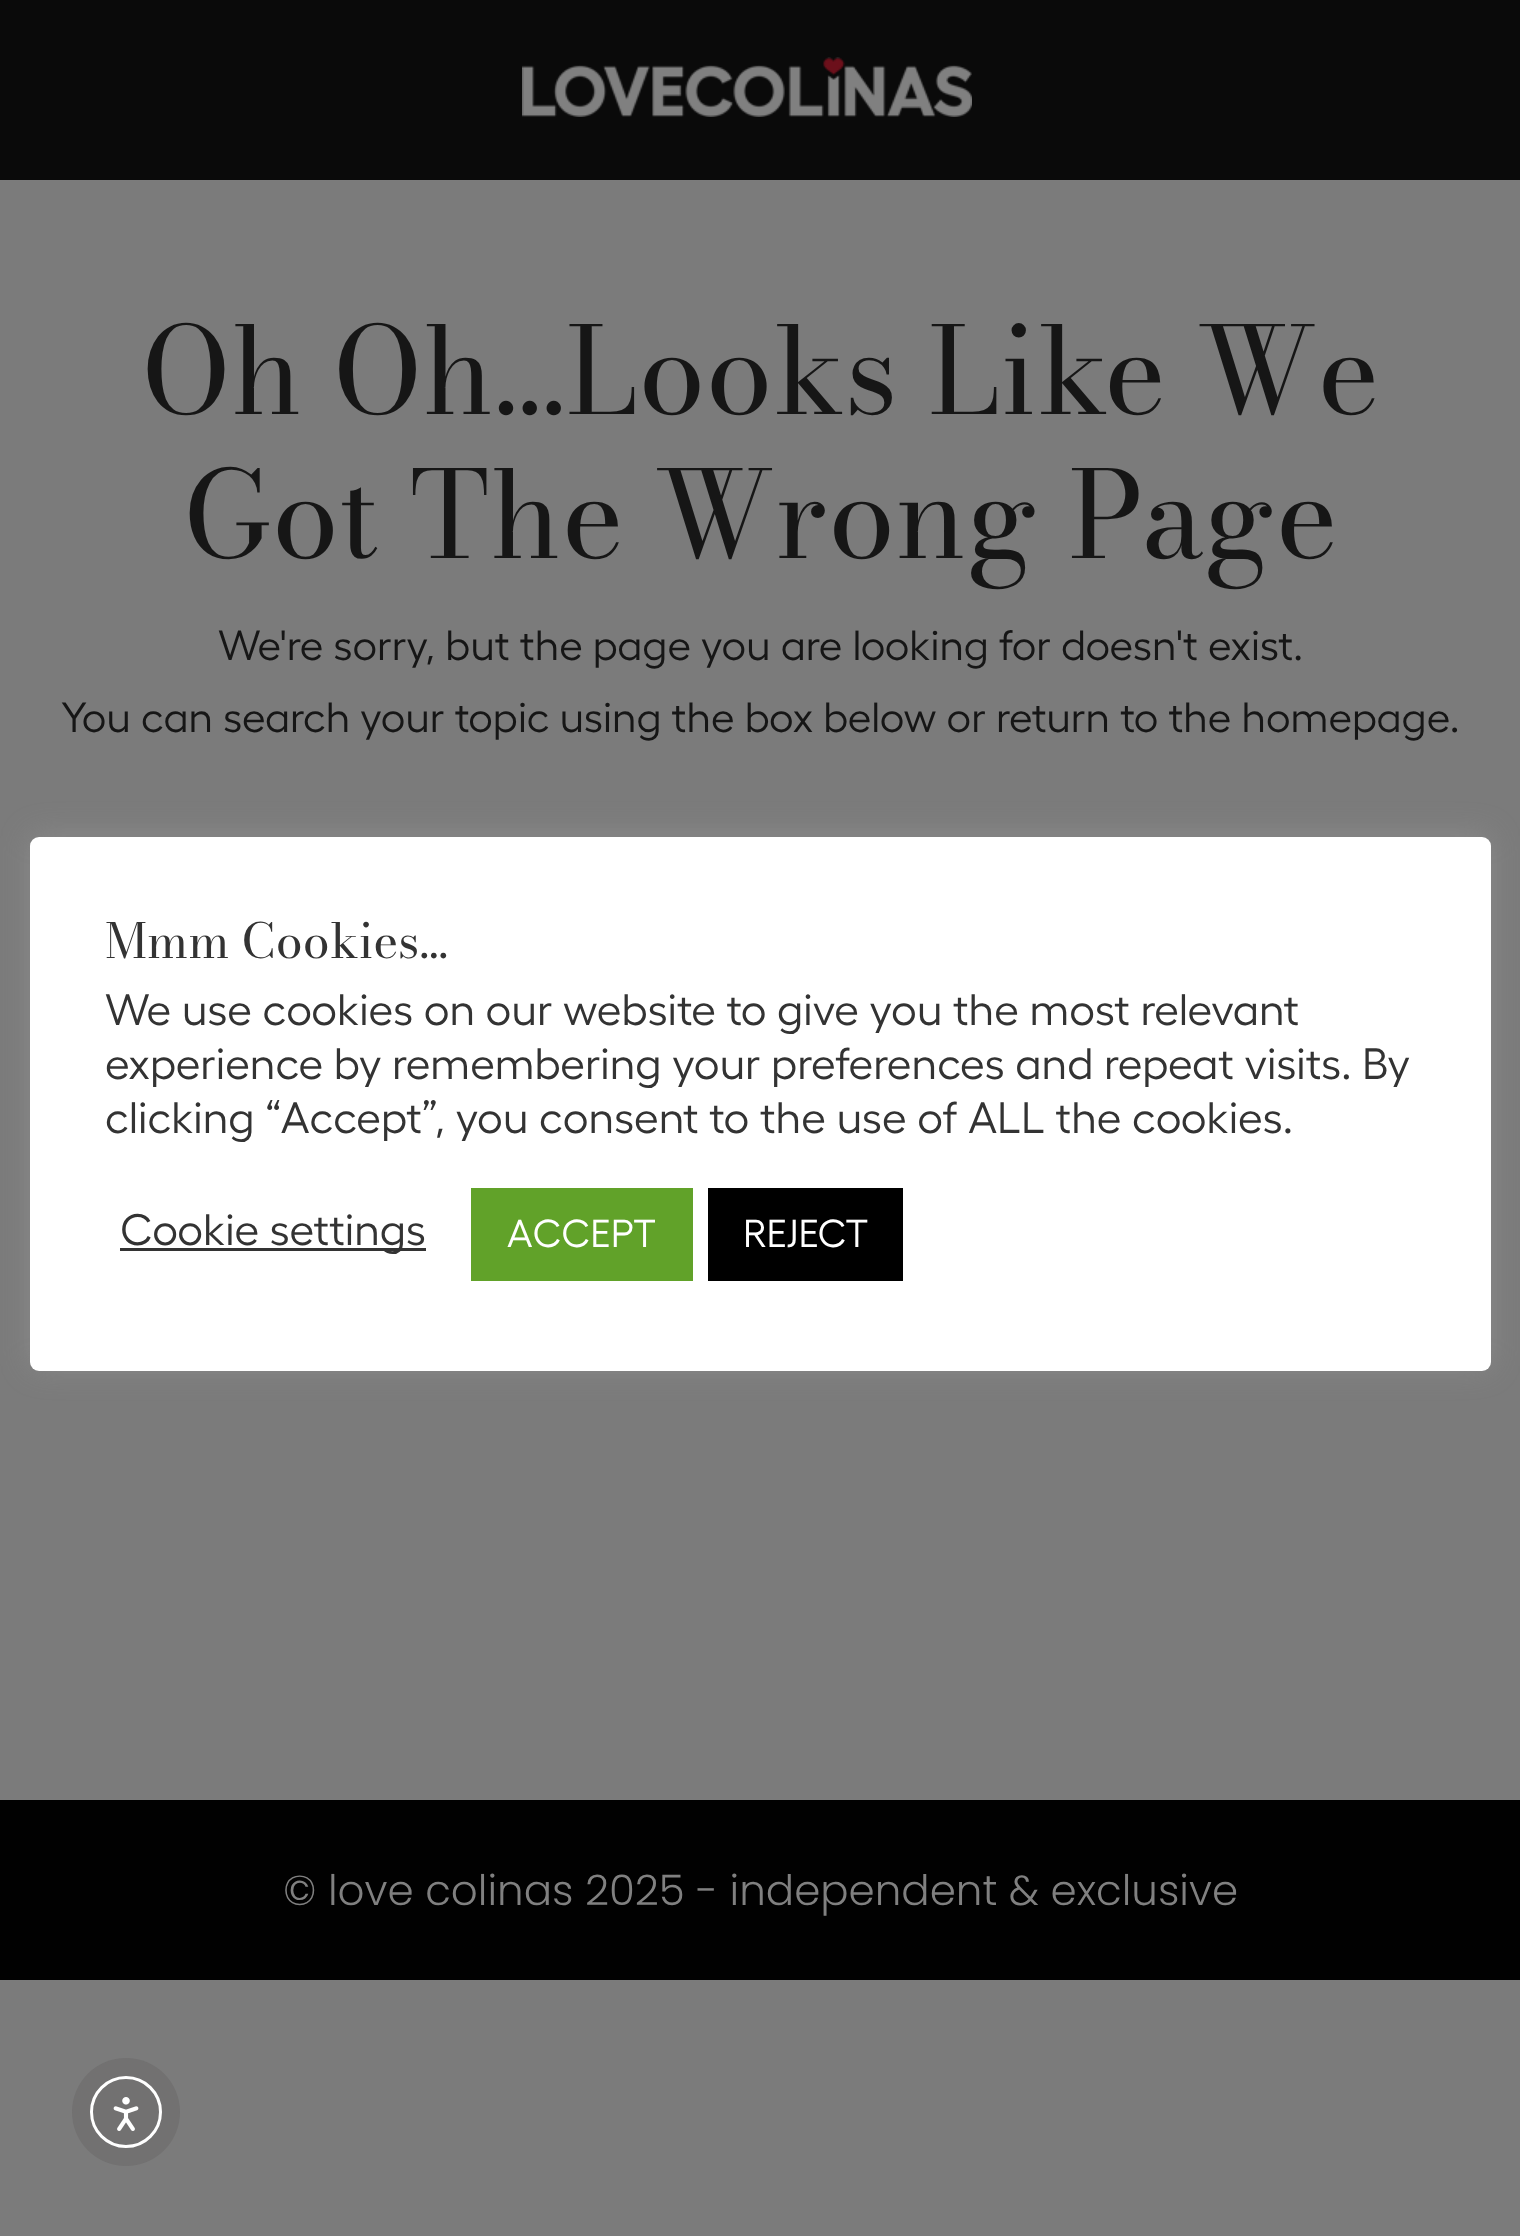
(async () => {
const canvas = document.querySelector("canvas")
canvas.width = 1520
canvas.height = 2236
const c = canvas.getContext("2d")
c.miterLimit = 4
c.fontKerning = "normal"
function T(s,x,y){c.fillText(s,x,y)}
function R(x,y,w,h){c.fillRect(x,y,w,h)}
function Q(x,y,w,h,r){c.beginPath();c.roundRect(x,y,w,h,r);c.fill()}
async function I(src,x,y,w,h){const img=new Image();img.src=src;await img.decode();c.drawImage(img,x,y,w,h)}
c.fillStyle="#7b7b7b"
R(0,0,1520,2236)
c.fillStyle="#0a0a0a"
R(0,0,1520,180)
await I("1.png",522,57,450,60)
c.font="120px Bodoni Moda"
c.fillStyle="#161616"
T("Oh Oh...Looks Like We",141,414)
T("Got The Wrong Page",183,558)
c.font="42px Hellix"
T("We're sorry, but the page you are looking for doesn't exist.",218,660)
T("You can search your topic using the box below or return to the homepage.",61,732)
c.fillStyle="#acabab4d"
c.filter="blur(15px)"
c.beginPath()
c.roundRect(30,834,1461,534,9)
c.fill()
c.filter="none"
c.fillStyle="#fff"
Q(30,837,1461,534,9)
c.font="48px Bodoni Moda"
c.fillStyle="#333"
T("Mmm Cookies...",105,958)
c.font="44px Hellix"
T("We use cookies on our website to give you the most relevant",105,1025)
T("experience by remembering your preferences and repeat visits. By",105,1079)
T("clicking “Accept”, you consent to the use of ALL the cookies.",105,1133)
R(120,1248,306,3)
T("Cookie settings",120,1245)
c.fillStyle="#61a229"
R(471,1188,222,93)
c.font="39px Hellix"
c.fillStyle="#fff"
T("ACCEPT",507,1247)
c.fillStyle="#000"
R(708,1188,195,93)
c.fillStyle="#fff"
T("REJECT",743,1247)
c.fillStyle="#010101"
R(0,1800,1520,180)
c.font="300 42px Poppins"
c.fillStyle="#808080"
T("© love colinas 2025 - independent & exclusive",283,1905)
c.fillStyle="#727171"
c.beginPath()
c.arc(126,2112,54,0,7)
c.fill()
c.beginPath()
c.arc(126,2112,34.5,0,7)
c.strokeStyle="#fff"
c.lineWidth=3
c.stroke()
await I("2.png",113,2097,26,34)
})()
